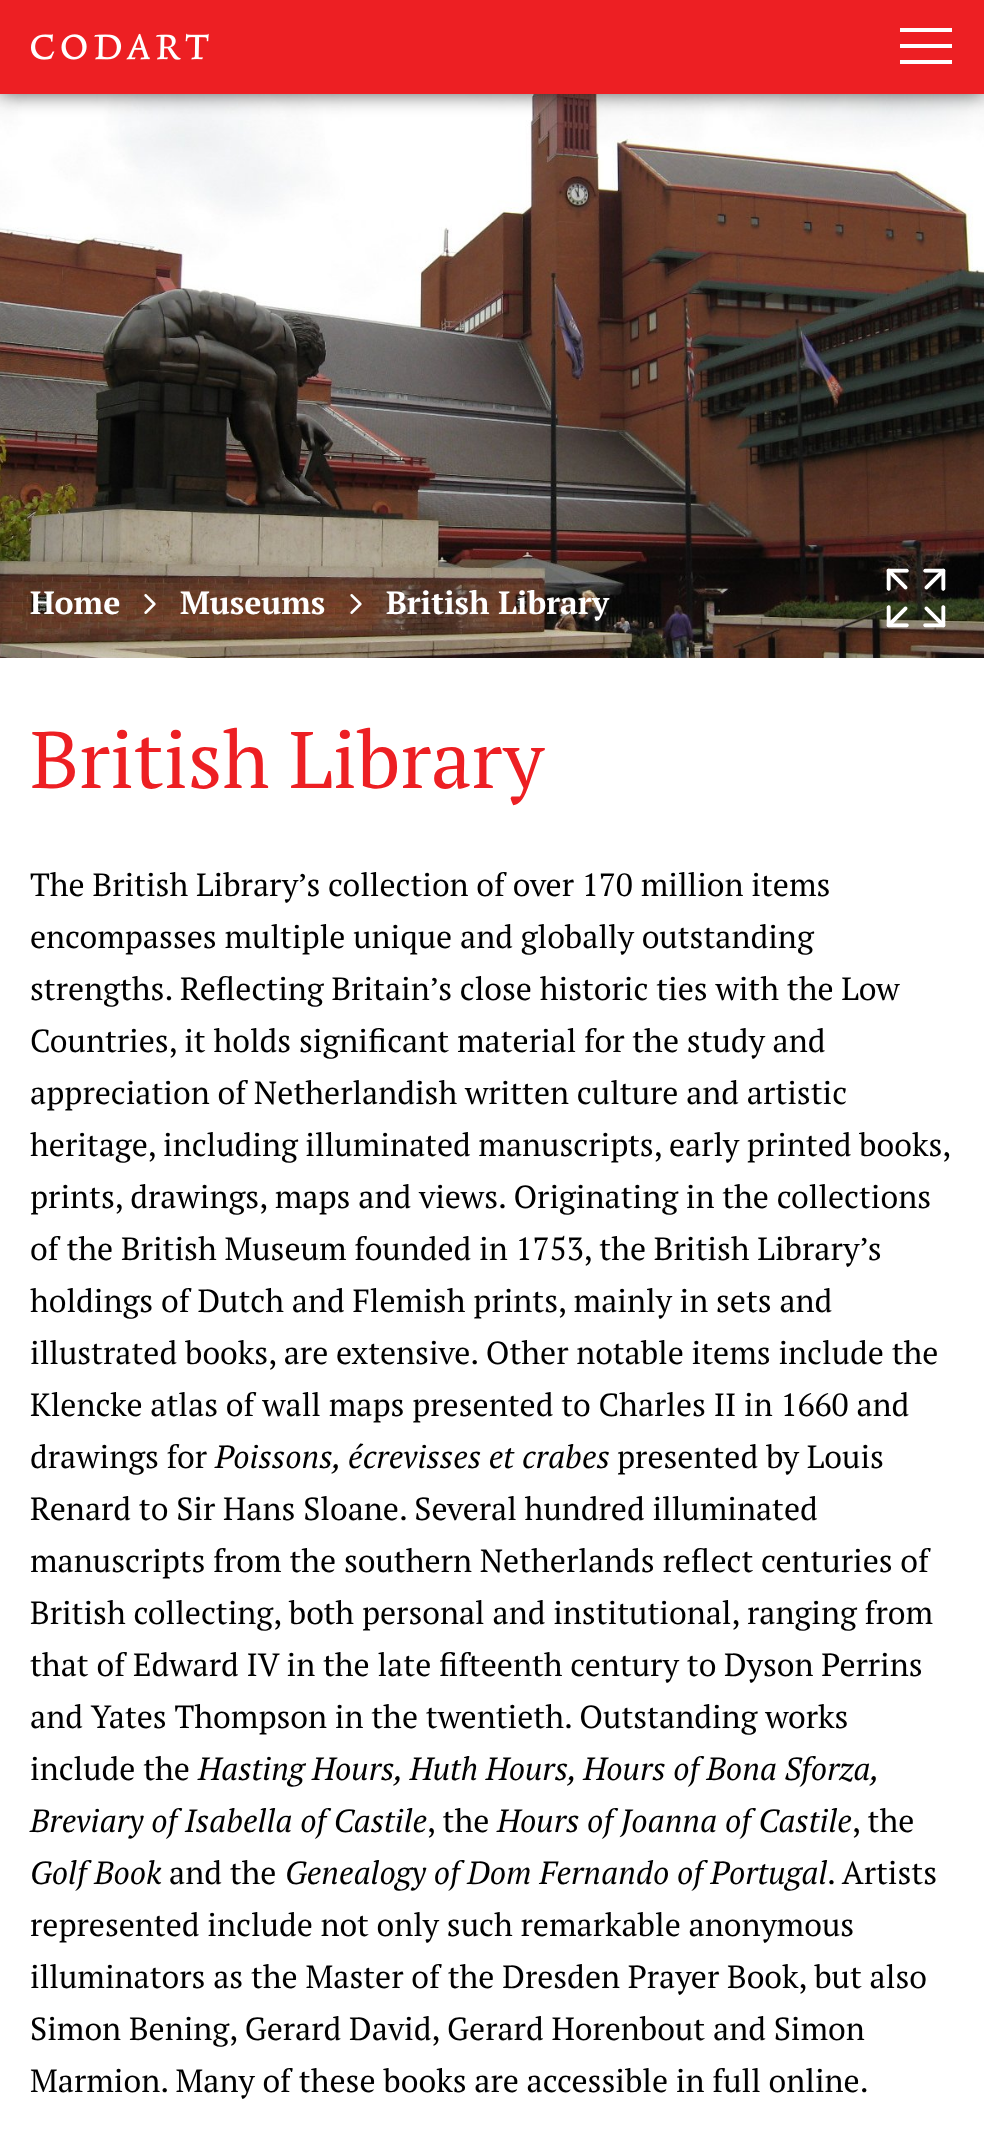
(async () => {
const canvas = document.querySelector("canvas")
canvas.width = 984
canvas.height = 2145
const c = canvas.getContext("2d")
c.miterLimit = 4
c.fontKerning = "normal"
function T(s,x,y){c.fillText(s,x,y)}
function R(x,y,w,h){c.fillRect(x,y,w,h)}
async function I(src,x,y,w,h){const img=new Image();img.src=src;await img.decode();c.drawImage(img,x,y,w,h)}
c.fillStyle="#fff"
R(0,0,984,2145)
await I("2.png",0,94,984,564)
c.fillStyle="#000000a6"
c.filter="blur(10px)"
c.beginPath()
c.rect(0,0,984,94)
c.fill()
c.filter="none"
c.fillStyle="#ed1f23"
R(0,0,984,94)
await I("1.png",31,33,178,27)
c.fillStyle="#fff"
R(900,28,52,4)
R(900,44,52,4)
R(900,60,52,4)
await I("3.png",886,568,23,23)
await I("4.png",923,568,23,23)
await I("5.png",886,605,23,23)
await I("6.png",923,605,23,23)
c.font="bold 32px PT Serif"
T("Home",30,614)
await I("7.png",144,594,12,20)
T("Museums",180,614)
await I("8.png",350,594,12,20)
T("British Library",386,614)
c.font="80px PT Serif"
c.fillStyle="#ed1f23"
T("British Library",30,788)
c.font="32px PT Serif"
c.fillStyle="#000"
T("The British Library’s collection of over 170 million items",30,896)
T("encompasses multiple unique and globally outstanding",30,948)
T("strengths. Reflecting Britain’s close historic ties with the Low",30,1000)
T("Countries, it holds significant material for the study and",30,1052)
T("appreciation of Netherlandish written culture and artistic",30,1104)
c.wordSpacing="-0.25px"
T("heritage, including illuminated manuscripts, early printed books,",30,1156)
c.wordSpacing="0px"
T("prints, drawings, maps and views. Originating in the collections",30,1208)
T("of the British Museum founded in 1753, the British Library’s",30,1260)
T("holdings of Dutch and Flemish prints, mainly in sets and",30,1312)
T("illustrated books, are extensive. Other notable items include the",30,1364)
T("Klencke atlas of wall maps presented to Charles II in 1660 and",30,1416)
T("drawings for",30,1468)
c.font="italic 32px PT Serif"
T("Poissons, écrevisses et crabes",215,1468)
c.font="32px PT Serif"
T("presented by Louis",617,1468)
T("Renard to Sir Hans Sloane. Several hundred illuminated",30,1520)
T("manuscripts from the southern Netherlands reflect centuries of",30,1572)
T("British collecting, both personal and institutional, ranging from",30,1624)
T("that of Edward IV in the late fifteenth century to Dyson Perrins",30,1676)
T("and Yates Thompson in the twentieth. Outstanding works",30,1728)
T("include the",30,1780)
c.wordSpacing="-0.25px"
c.font="italic 32px PT Serif"
T("Hasting Hours, Huth Hours, Hours of Bona Sforza,",198,1780)
c.wordSpacing="0px"
T("Breviary of Isabella of Castile",30,1832)
c.font="32px PT Serif"
T(", the",427,1832)
c.font="italic 32px PT Serif"
T("Hours of Joanna of Castile",497,1832)
c.font="32px PT Serif"
T(", the",852,1832)
c.font="italic 32px PT Serif"
T("Golf Book",30,1884)
c.font="32px PT Serif"
T("and the",169,1884)
c.font="italic 32px PT Serif"
T("Genealogy of Dom Fernando of Portugal",285,1884)
c.font="32px PT Serif"
T(". Artists",827,1884)
T("represented include not only such remarkable anonymous",30,1936)
T("illuminators as the Master of the Dresden Prayer Book, but also",30,1988)
T("Simon Bening, Gerard David, Gerard Horenbout and Simon",30,2040)
T("Marmion. Many of these books are accessible in full online.",30,2092)
})()
